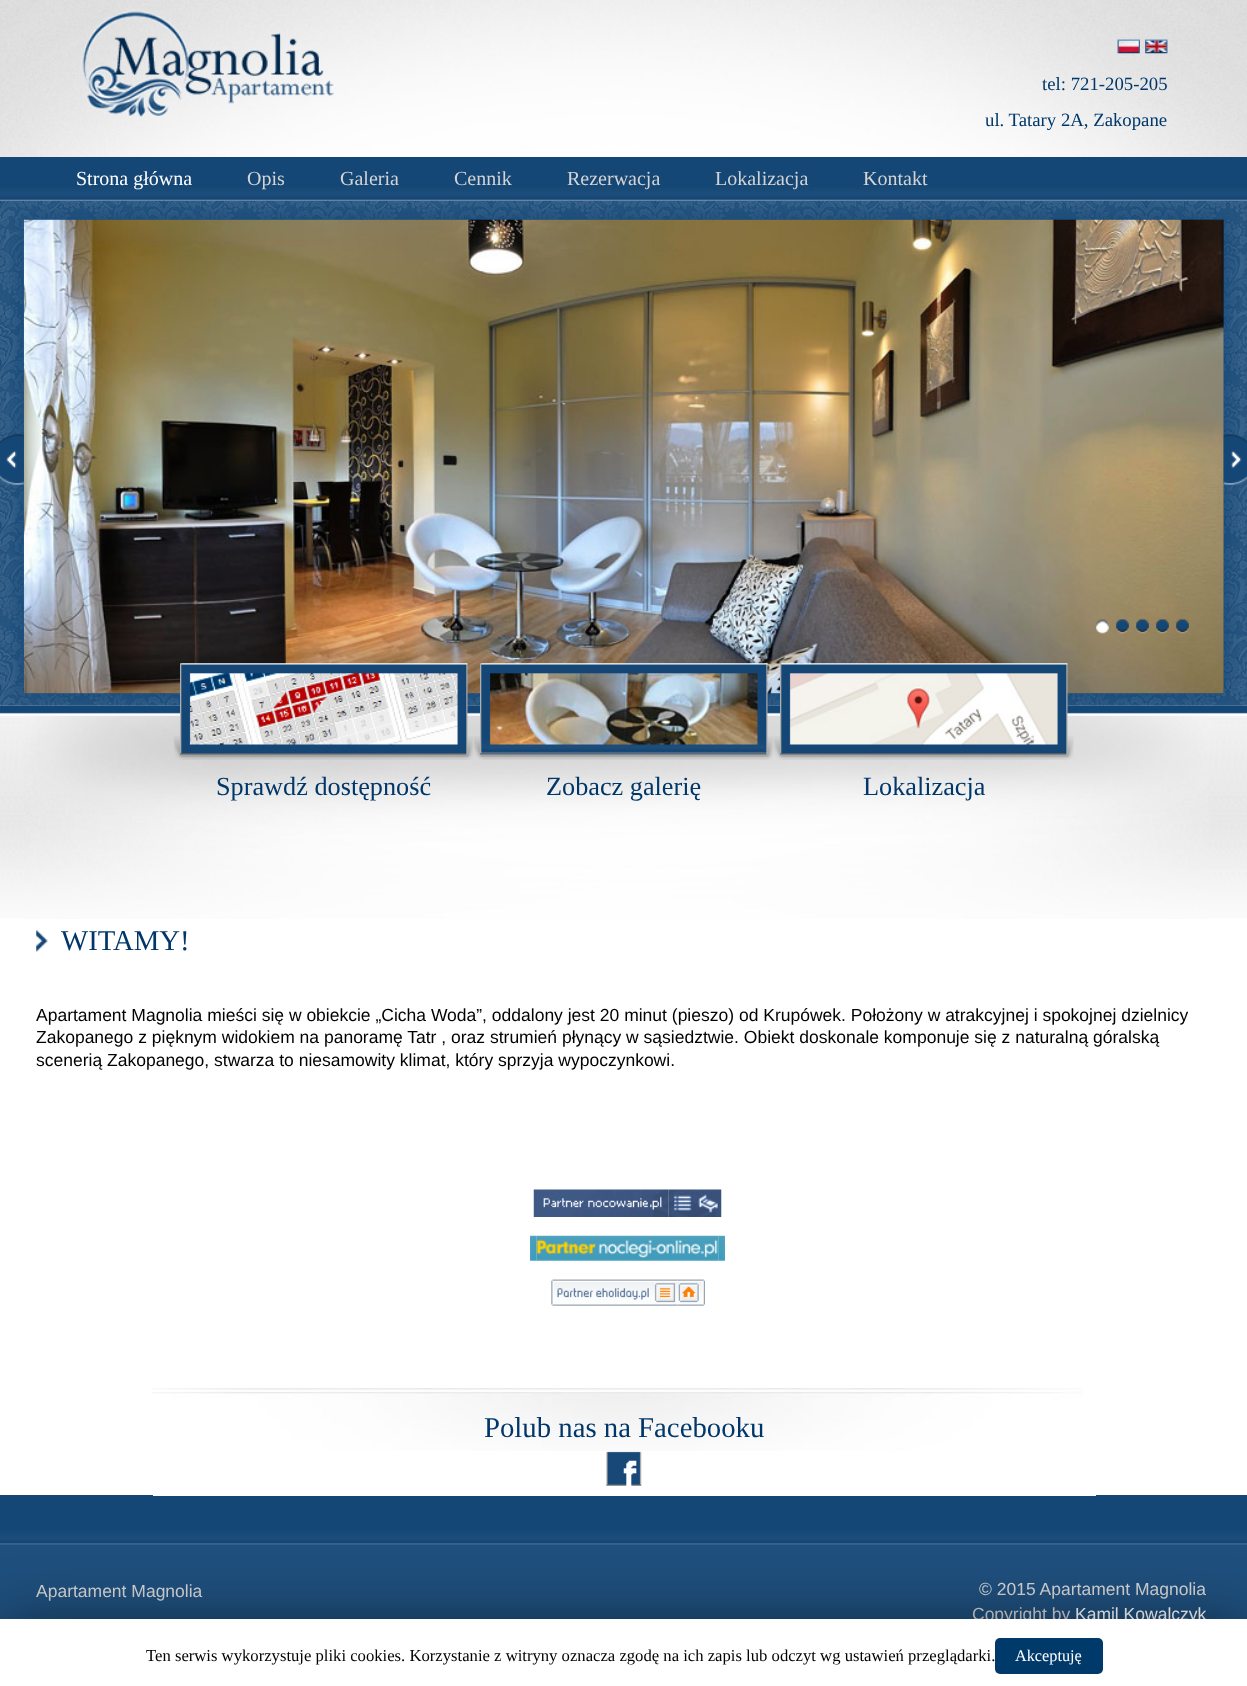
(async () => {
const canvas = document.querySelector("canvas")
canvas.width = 1247
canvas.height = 1686
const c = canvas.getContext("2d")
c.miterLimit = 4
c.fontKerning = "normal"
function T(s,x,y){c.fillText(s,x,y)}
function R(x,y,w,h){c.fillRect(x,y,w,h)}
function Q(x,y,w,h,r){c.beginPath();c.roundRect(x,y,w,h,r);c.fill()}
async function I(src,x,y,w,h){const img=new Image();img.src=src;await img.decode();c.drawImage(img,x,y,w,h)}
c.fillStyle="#fff"
R(0,0,1247,1686)
await I("1.png",0,0,1247,157)
await I("2.png",81,9,253,108)
await I("3.png",1117,39,23,15)
await I("4.png",1145,39,23,15)
c.font="18.75px Liberation Serif"
c.fillStyle="#00376a"
T("tel: 721-205-205",1042,90)
T("ul. Tatary 2A, Zakopane",985,126)
await I("5.png",0,157,1247,44)
c.font="20px Liberation Serif"
c.fillStyle="#fff"
T("Strona główna",76,185)
c.fillStyle="#d4d4d4"
T("Opis",247,185)
T("Galeria",340,185)
T("Cennik",454,185)
T("Rezerwacja",567,185)
T("Lokalizacja",715,185)
T("Kontakt",863,185)
await I("6.png",0,200,1247,506)
await I("16.png",0,705,1247,9)
await I("7.png",10,206,1229,500)
await I("9.png",23,219,1201,475)
await I("8.png",0,434,24,51)
await I("10.png",1223,434,24,51)
await I("11.png",1096,619,13,15)
await I("12.png",1116,619,13,15)
await I("13.png",1136,619,13,15)
await I("14.png",1156,619,13,15)
await I("15.png",1176,619,13,15)
await I("17.png",0,716,1247,202)
await I("18.png",24,715,1185,204)
await I("19.png",174,736,300,24)
await I("20.png",180,663,288,92)
c.font="26.25px Liberation Serif"
c.fillStyle="#00376a"
T("Sprawdź dostępność",216,795)
await I("21.png",474,736,300,24)
await I("22.png",480,663,288,92)
T("Zobacz galerię",546,795)
await I("23.png",774,736,300,24)
await I("24.png",780,663,288,92)
T("Lokalizacja",863,795)
await I("25.png",36,929,12,23)
c.font="28.75px Liberation Serif"
T("WITAMY!",61,950)
c.font="17.5px Liberation Sans"
c.fillStyle="#000"
T("Apartament Magnolia mieści się w obiekcie „Cicha Woda”, oddalony jest 20 minut (pieszo) od Krupówek. Położony w atrakcyjnej i spokojnej dzielnicy",36,1021)
T("Zakopanego z pięknym widokiem na panoramę Tatr , oraz strumień płynący w sąsiedztwie. Obiekt doskonale komponuje się z naturalną góralską",36,1043)
T("scenerią Zakopanego, stwarza to niesamowity klimat, który sprzyja wypoczynkowi.",36,1066)
await I("26.png",533,1189,136,28)
await I("27.png",668,1189,27,28)
await I("28.png",695,1189,27,28)
await I("29.png",530,1235,7,26)
await I("30.png",536,1235,183,26)
await I("31.png",718,1235,7,26)
await I("32.png",551,1279,99,27)
await I("33.png",650,1279,28,27)
await I("34.png",677,1279,28,27)
await I("35.png",152,1388,931,63)
c.fillStyle="#154776"
R(0,1495,1247,6)
c.fillStyle="#fff"
R(153,1495,943,1)
c.font="28.75px Liberation Serif"
c.fillStyle="#00376a"
T("Polub nas na Facebooku",484,1437)
await I("36.png",606,1451,36,35)
c.fillStyle="#1f4f7d"
R(0,1544,1247,75)
await I("37.png",0,1501,1247,44)
c.font="17.5px Liberation Sans"
c.fillStyle="#d4d4d4"
T("Apartament Magnolia",36,1597)
T("© 2015 Apartament Magnolia",979,1595)
T("Copyright by",972,1620)
c.fillStyle="#fff"
T("Kamil Kowalczyk",1075,1620)
c.fillStyle="#00000080"
c.filter="blur(31px)"
c.beginPath()
c.rect(0,1625,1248,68)
c.fill()
c.filter="none"
c.fillStyle="#fff"
R(0,1619,1247,67)
c.font="16.67px Liberation Serif"
c.fillStyle="#000"
T("Ten serwis wykorzystuje pliki cookies. Korzystanie z witryny oznacza zgodę na ich zapis lub odczyt wg ustawień przeglądarki.",146,1661)
c.fillStyle="#003a6b"
Q(995,1638,108,36,5)
c.font="16.25px Liberation Serif"
c.fillStyle="#fff"
T("Akceptuję",1015,1661)
})()
